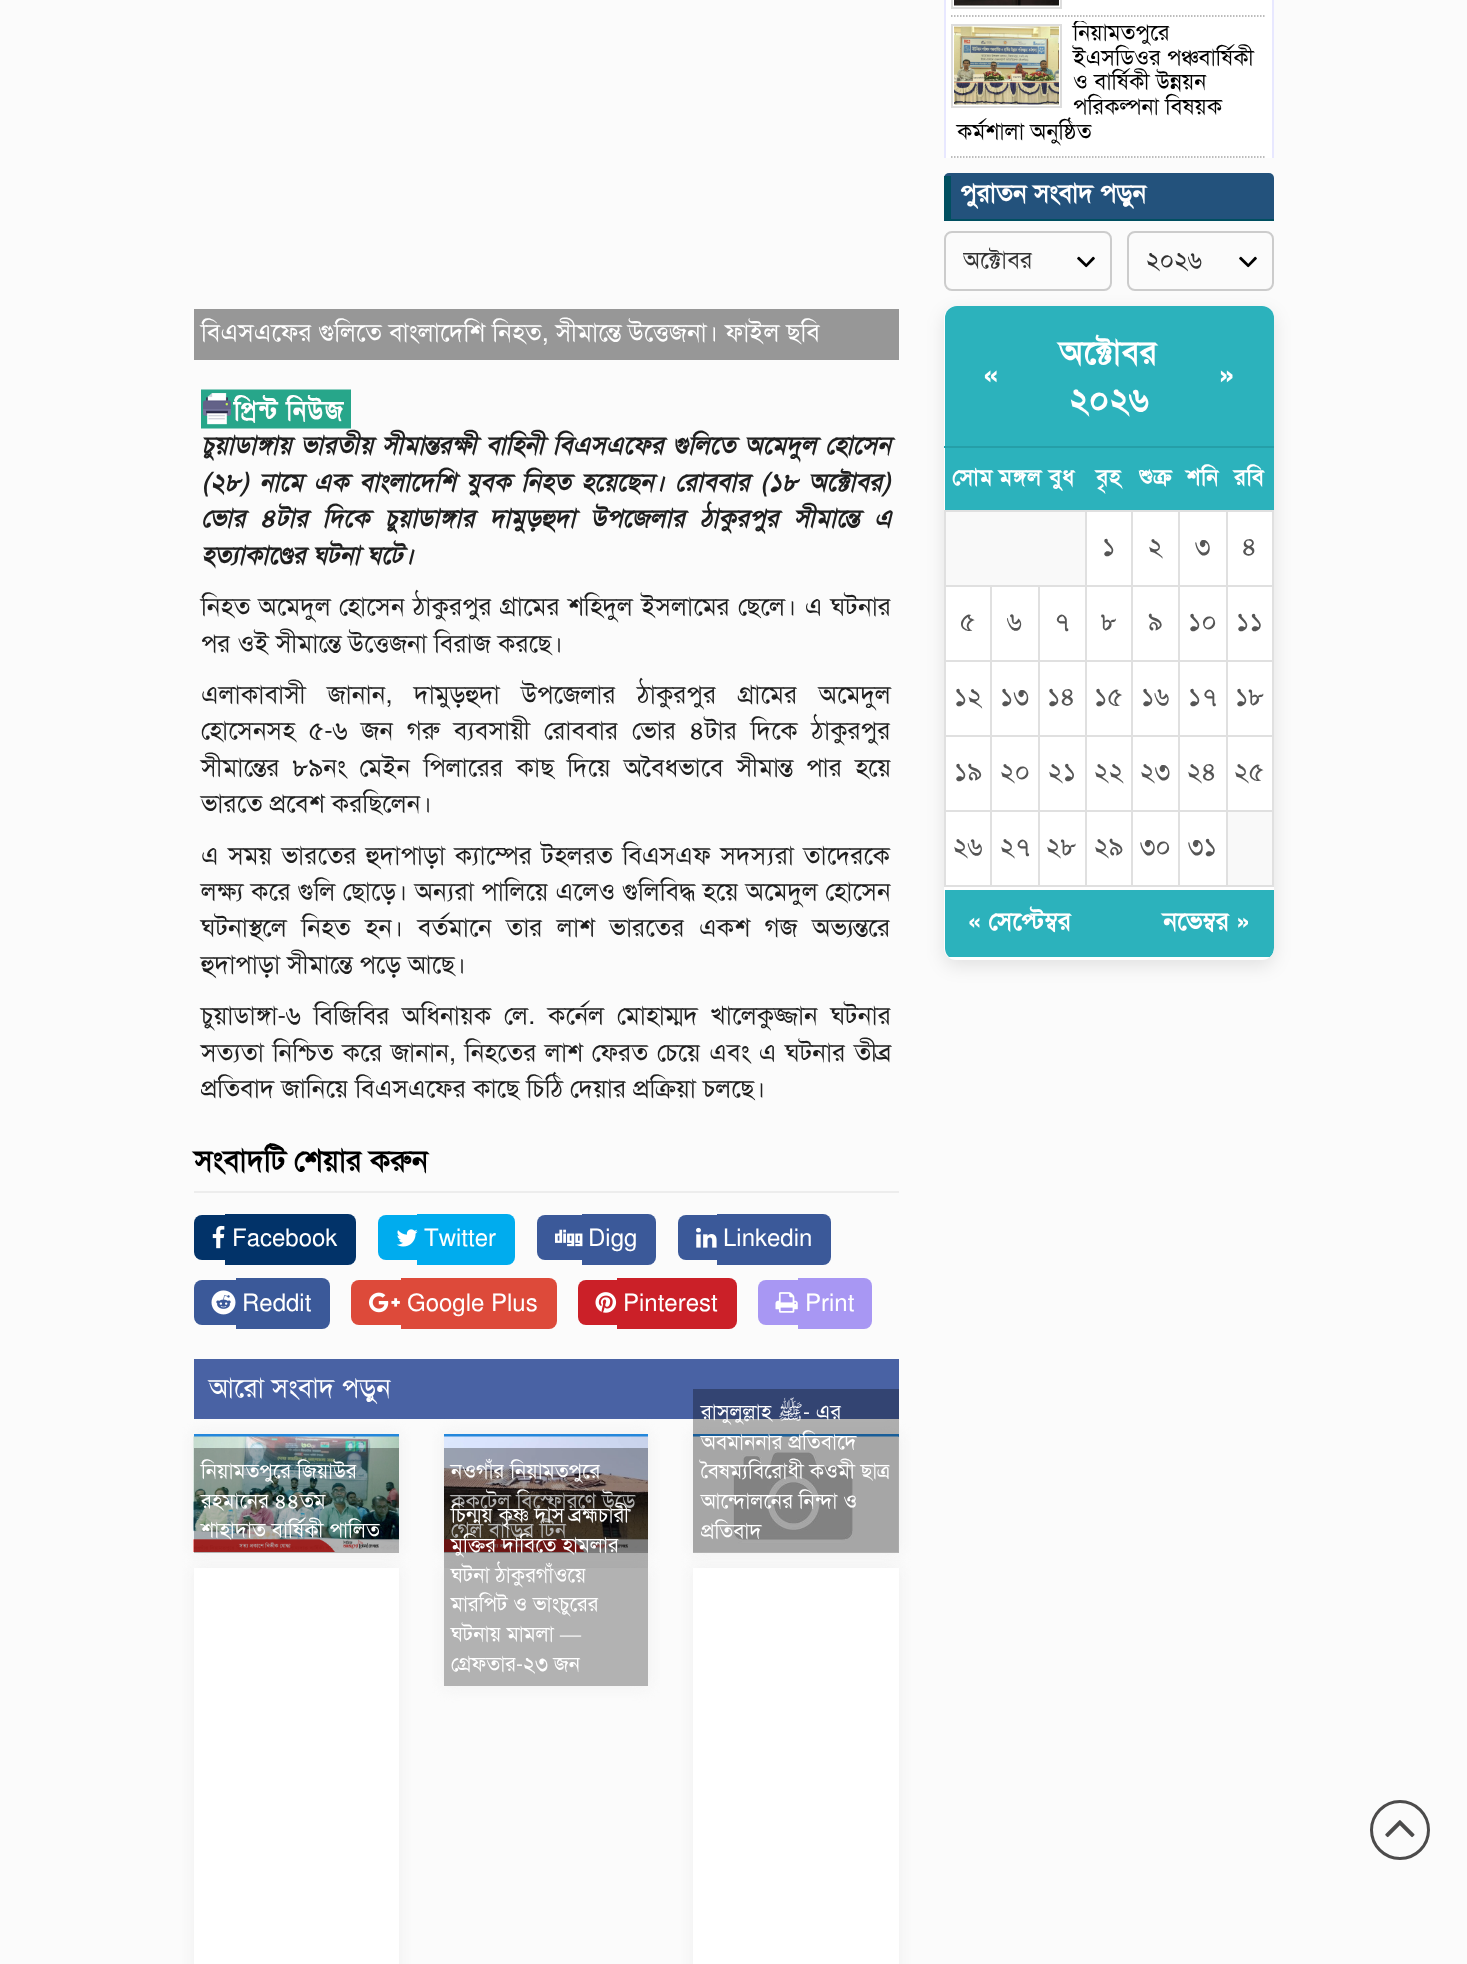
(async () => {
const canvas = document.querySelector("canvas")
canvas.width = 1467
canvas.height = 1964
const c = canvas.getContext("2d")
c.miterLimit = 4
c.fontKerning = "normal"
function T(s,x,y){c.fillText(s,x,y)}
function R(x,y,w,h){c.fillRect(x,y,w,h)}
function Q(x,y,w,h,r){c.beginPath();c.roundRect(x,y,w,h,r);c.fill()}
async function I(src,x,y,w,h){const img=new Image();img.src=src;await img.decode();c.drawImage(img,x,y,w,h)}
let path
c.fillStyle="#fbfbfb"
R(0,0,1467,1964)
c.fillStyle="#979797"
R(194,309,705,51)
c.font="25.5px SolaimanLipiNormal"
c.fillStyle="#fff"
T("বিএসএফের গুলিতে বাংলাদেশি নিহত, সীমান্তে উত্তেজনা। ফাইল ছবি",201,341)
await I("1.png",201,389,150,40)
c.wordSpacing="1.75px"
c.font="italic bold 25.5px SolaimanLipiNormal"
c.fillStyle="#202020"
T("চুয়াডাঙ্গায় ভারতীয় সীমান্তরক্ষী বাহিনী বিএসএফের গুলিতে অমেদুল হোসেন",201,454)
c.wordSpacing="3.5px"
T("(২৮) নামে এক বাংলাদেশি যুবক নিহত হয়েছেন। রোববার (১৮ অক্টোবর)",201,491)
c.wordSpacing="8px"
T("ভোর ৪টার দিকে চুয়াডাঙ্গার দামুড়হুদা উপজেলার ঠাকুরপুর সীমান্তে এ",201,527)
c.wordSpacing="0px"
T("হত্যাকাণ্ডের ঘটনা ঘটে।",201,564)
c.wordSpacing="1.25px"
c.font="25.5px SolaimanLipiNormal"
T("নিহত অমেদুল হোসেন ঠাকুরপুর গ্রামের শহিদুল ইসলামের ছেলে। এ ঘটনার",201,615)
c.wordSpacing="0px"
T("পর ওই সীমান্তে উত্তেজনা বিরাজ করছে।",201,652)
c.wordSpacing="14.5px"
T("এলাকাবাসী জানান, দামুড়হুদা উপজেলার ঠাকুরপুর গ্রামের অমেদুল",201,703)
c.wordSpacing="6.75px"
T("হোসেনসহ ৫-৬ জন গরু ব্যবসায়ী রোববার ভোর ৪টার দিকে ঠাকুরপুর",201,739)
c.wordSpacing="6.25px"
T("সীমান্তের ৮৯নং মেইন পিলারের কাছ দিয়ে অবৈধভাবে সীমান্ত পার হয়ে",201,776)
c.wordSpacing="0px"
T("ভারতে প্রবেশ করছিলেন।",201,812)
c.wordSpacing="2.5px"
T("এ সময় ভারতের হুদাপাড়া ক্যাম্পের টহলরত বিএসএফ সদস্যরা তাদেরকে",201,864)
c.wordSpacing="0.25px"
T("লক্ষ্য করে গুলি ছোড়ে। অন্যরা পালিয়ে এলেও গুলিবিদ্ধ হয়ে অমেদুল হোসেন",201,900)
c.wordSpacing="7.5px"
T("ঘটনাস্থলে নিহত হন। বর্তমানে তার লাশ ভারতের একশ গজ অভ্যন্তরে",201,936)
c.wordSpacing="0px"
T("হুদাপাড়া সীমান্তে পড়ে আছে।",201,973)
c.wordSpacing="5.75px"
T("চুয়াডাঙ্গা-৬ বিজিবির অধিনায়ক লে. কর্নেল মোহাম্মদ খালেকুজ্জান ঘটনার",201,1024)
c.wordSpacing="1.75px"
T("সত্যতা নিশ্চিত করে জানান, নিহতের লাশ ফেরত চেয়ে এবং এ ঘটনার তীব্র",201,1061)
c.wordSpacing="0px"
T("প্রতিবাদ জানিয়ে বিএসএফের কাছে চিঠি দেয়ার প্রক্রিয়া চলছে।",201,1097)
c.fillStyle="#ededed"
R(194,1191,705,2)
c.font="bold 30px SolaimanLipiNormal"
c.fillStyle="#000"
T("সংবাদটি শেয়ার করুন",194,1171)
c.fillStyle="#023369"
c.beginPath()
c.roundRect(194,1215,31,45,[8,0,0,8])
c.fill()
c.beginPath()
c.roundRect(225,1214,131,51,[0,8,8,0])
c.fill()
await I("2.png",212,1225,13,24)
c.font="24px SolaimanLipiNormal"
c.fillStyle="#fff"
T("Facebook",232,1246)
c.fillStyle="#00acee"
c.beginPath()
c.roundRect(378,1215,39,45,[8,0,0,8])
c.fill()
c.beginPath()
c.roundRect(417,1214,98,51,[0,8,8,0])
c.fill()
await I("3.png",396,1229,22,18)
c.fillStyle="#fff"
T("Twitter",424,1246)
c.fillStyle="#3b5999"
c.beginPath()
c.roundRect(537,1215,45,45,[8,0,0,8])
c.fill()
c.beginPath()
c.roundRect(582,1214,74,51,[0,8,8,0])
c.fill()
await I("4.png",555,1229,28,18)
c.fillStyle="#fff"
T("Digg",588,1246)
c.fillStyle="#3b5999"
c.beginPath()
c.roundRect(678,1215,39,45,[8,0,0,8])
c.fill()
c.beginPath()
c.roundRect(717,1214,114,51,[0,8,8,0])
c.fill()
await I("5.png",696,1227,21,21)
c.fillStyle="#fff"
T("Linkedin",723,1246)
c.fillStyle="#3b5999"
c.beginPath()
c.roundRect(194,1280,42,45,[8,0,0,8])
c.fill()
c.beginPath()
c.roundRect(236,1278,94,51,[0,8,8,0])
c.fill()
await I("6.png",211,1290,25,25)
c.fillStyle="#fff"
T("Reddit",242,1311)
c.fillStyle="#dd4a3a"
c.beginPath()
c.roundRect(351,1280,50,45,[8,0,0,8])
c.fill()
c.beginPath()
c.roundRect(401,1278,156,51,[0,8,8,0])
c.fill()
await I("7.png",369,1292,31,21)
c.fillStyle="#fff"
T("Google Plus",407,1311)
c.fillStyle="#cb2028"
c.beginPath()
c.roundRect(578,1280,39,45,[8,0,0,8])
c.fill()
c.beginPath()
c.roundRect(617,1278,120,51,[0,8,8,0])
c.fill()
await I("8.png",595,1292,22,21)
c.fillStyle="#fff"
T("Pinterest",623,1311)
c.fillStyle="#a897f3"
c.beginPath()
c.roundRect(758,1280,40,45,[8,0,0,8])
c.fill()
c.beginPath()
c.roundRect(798,1278,74,51,[0,8,8,0])
c.fill()
await I("9.png",775,1292,23,21)
c.fillStyle="#fff"
T("Print",805,1311)
c.fillStyle="#4962a4"
R(194,1359,705,60)
c.font="27px SolaimanLipiNormal"
c.fillStyle="#fff"
T("আরো সংবাদ পড়ুন",209,1397)
c.fillStyle="#efefef"
c.filter="blur(7.5px)"
c.beginPath()
c.rect(194,1434,205,119)
c.fill()
c.filter="none"
c.fillStyle="#fff"
R(194,1552,205,1)
c.fillStyle="#2487db"
R(194,1434,205,3)
await I("10.png",193,1436,206,116)
c.fillStyle="#0000004d"
R(194,1448,205,105)
c.font="21px SolaimanLipiNormal"
c.fillStyle="#fff"
T("নিয়ামতপুরে জিয়াউর",201,1478)
T("রহমানের ৪৪তম",201,1508)
T("শাহাদাত বার্ষিকী পালিত",201,1537)
c.fillStyle="#efefef"
c.filter="blur(7.5px)"
c.beginPath()
c.rect(444,1434,204,119)
c.fill()
c.filter="none"
c.fillStyle="#fff"
R(444,1552,204,1)
c.fillStyle="#2487db"
R(444,1434,204,3)
await I("11.png",444,1436,204,116)
c.fillStyle="#0000004d"
R(444,1448,204,105)
c.fillStyle="#fff"
T("নওগাঁর নিয়ামতপুরে",451,1478)
T("ককটেল বিস্ফোরণে উড়ে",451,1508)
T("গেল বাড়ির টিন",451,1537)
c.fillStyle="#efefef"
c.filter="blur(7.5px)"
c.beginPath()
c.rect(693,1434,206,119)
c.fill()
c.filter="none"
c.fillStyle="#fff"
R(693,1437,206,116)
c.fillStyle="#2487db"
R(693,1434,206,3)
await I("12.png",693,1436,206,116)
c.fillStyle="#0000004d"
R(693,1389,206,164)
c.fillStyle="#fff"
T("রাসুলুল্লাহ",701,1419)
c.direction="rtl"
c.font="21px Lateef"
T("ﷺ",803,1419)
c.direction="ltr"
c.font="21px SolaimanLipiNormal"
T("- এর",803,1419)
T("অবমাননার প্রতিবাদে",701,1449)
T("বৈষম্যবিরোধী কওমী ছাত্র",701,1478)
T("আন্দোলনের নিন্দা ও",701,1508)
T("প্রতিবাদ",701,1538)
c.fillStyle="#efefef"
c.filter="blur(7.5px)"
c.beginPath()
c.rect(194,1568,205,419)
c.fill()
c.filter="none"
c.fillStyle="#fff"
R(194,1568,205,396)
c.fillStyle="#efefef"
c.filter="blur(7.5px)"
c.beginPath()
c.rect(444,1568,204,118)
c.fill()
c.filter="none"
c.fillStyle="#fff"
R(444,1568,204,118)
c.fillStyle="#0000004d"
R(444,1493,204,193)
c.fillStyle="#fff"
T("চিন্ময় কৃষ্ণ দাস ব্রহ্মচারী",451,1522)
T("মুক্তির দাবিতে হামলার",451,1552)
T("ঘটনা ঠাকুরগাঁওয়ে",451,1582)
T("মারপিট ও ভাংচুরের",451,1611)
T("ঘটনায় মামলা",451,1641)
c.font="21px Liberation Serif"
T("—",560,1641)
c.font="21px SolaimanLipiNormal"
T("গ্রেফতার-২৩ জন",451,1671)
c.fillStyle="#efefef"
c.filter="blur(7.5px)"
c.beginPath()
c.rect(693,1568,206,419)
c.fill()
c.filter="none"
c.fillStyle="#fff"
R(693,1568,206,396)
R(946,0,326,158)
c.fillStyle="#e8e8ff"
R(1272,0,2,158)
R(944,0,2,158)
path = new Path2D("M951 16h315")
c.strokeStyle="#a6a6a6"
c.lineWidth=1.5
c.setLineDash([1.5,1.5])
c.stroke(path)
c.strokeStyle="#ddd"
c.lineWidth=2
c.setLineDash([])
c.strokeRect(952,-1,109,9)
await I("13.png",954,0,105,6)
path = new Path2D("M951 157h315")
c.strokeStyle="#a6a6a6"
c.lineWidth=1.5
c.setLineDash([1.5,1.5])
c.stroke(path)
c.save()
c.beginPath()
c.rect(951,21,315,135)
c.clip()
c.font="22.5px SolaimanLipiNormal"
c.fillStyle="#000"
T("নিয়ামতপুরে",1073,40)
c.restore()
c.font="22.5px SolaimanLipiNormal"
c.fillStyle="#000"
T("ইএসডিওর পঞ্চবার্ষিকী",1073,65)
T("ও বার্ষিকী উন্নয়ন",1073,89)
T("পরিকল্পনা বিষয়ক",1073,114)
T("কর্মশালা অনুষ্ঠিত",957,139)
c.strokeStyle="#ddd"
c.lineWidth=2
c.setLineDash([])
c.strokeRect(952,25,109,82)
await I("14.png",954,26,105,79)
c.fillStyle="#23527c"
c.beginPath()
c.roundRect(944,173,330,48,[5,5,0,0])
c.fill()
c.fillStyle="#004f60"
R(944,219,330,2)
R(944,176,7,45)
c.font="bold 25.5px SolaimanLipiNormal"
c.fillStyle="#fff"
T("পুরাতন সংবাদ পড়ুন",960,202)
await I("15.png",1077,256,18,12)
c.beginPath()
c.roundRect(945,232,166,58,7)
c.strokeStyle="#ccc"
c.stroke()
c.save()
c.beginPath()
c.rect(963,245,102,33)
c.clip()
c.font="24px SolaimanLipiNormal"
c.fillStyle="#333"
T("অক্টোবর",963,268)
c.restore()
await I("15.png",1239,256,18,12)
c.beginPath()
c.roundRect(1128,232,145,58,7)
c.stroke()
c.font="24px SolaimanLipiNormal"
c.fillStyle="#333"
T("২০২৬",1146,268)
c.fillStyle="#0000001a"
c.filter="blur(9px)"
c.beginPath()
c.roundRect(944,312,330,654,12)
c.fill()
c.filter="none"
c.fillStyle="#fff"
Q(944,306,330,654,12)
c.fillStyle="#2cb2bc"
c.beginPath()
c.roundRect(945,306,329,141,[12,12,0,0])
c.fill()
c.fillStyle="#259fa8"
R(944,446,330,2)
c.letterSpacing="0.75px"
c.font="bold 30px SolaimanLipiNormal"
c.fillStyle="#fff"
T("«",982,385)
c.font="bold 33px SolaimanLipiNormal"
T("অক্টোবর",1059,364)
T("২০২৬",1069,411)
c.font="bold 30px SolaimanLipiNormal"
T("»",1218,385)
c.fillStyle="#2cb2bc"
R(945,448,329,62)
c.font="bold 22.5px SolaimanLipiNormal"
c.fillStyle="#fff"
T("সোম",952,485)
T("মঙ্গল",999,485)
T("বুধ",1049,485)
T("বৃহ",1096,485)
T("শুক্র",1139,485)
T("শনি",1186,485)
T("রবি",1234,485)
c.fillStyle="#f9f9f9"
R(946,512,139,73)
c.fillStyle="#e0e0e0"
R(1226,510,48,2)
R(1226,585,48,2)
R(1226,660,48,2)
R(1226,735,48,2)
R(1226,810,48,2)
R(1272,810,2,77)
R(1226,885,48,2)
R(1226,810,2,77)
R(1178,810,49,2)
R(1226,735,2,77)
R(1178,735,49,2)
R(1226,660,2,77)
R(1178,660,49,2)
R(1226,585,2,77)
R(1178,585,49,2)
R(1226,510,2,77)
R(1178,510,49,2)
R(1178,885,49,2)
R(1178,810,2,77)
R(1131,810,48,2)
R(1178,735,2,77)
R(1131,735,48,2)
R(1178,660,2,77)
R(1131,660,48,2)
R(1178,585,2,77)
R(1131,585,48,2)
R(1178,510,2,77)
R(1131,510,48,2)
R(1131,885,48,2)
R(1131,810,2,77)
R(1085,810,48,2)
R(1131,735,2,77)
R(1085,735,48,2)
R(1131,660,2,77)
R(1085,660,48,2)
R(1131,585,2,77)
R(1085,585,48,2)
R(1131,510,2,77)
R(1085,510,48,2)
R(1085,885,48,2)
R(1085,810,2,77)
R(1038,810,48,2)
R(1085,735,2,77)
R(1038,735,48,2)
R(1085,660,2,77)
R(1038,660,48,2)
R(1085,585,2,77)
R(1038,585,48,2)
R(1085,510,2,77)
R(944,510,142,2)
R(1038,885,48,2)
R(1038,810,2,77)
R(990,810,50,2)
R(1038,735,2,77)
R(990,735,50,2)
R(1038,660,2,77)
R(990,660,50,2)
R(1038,585,2,77)
R(990,585,50,2)
R(990,885,50,2)
R(990,810,2,77)
R(944,810,48,2)
R(990,735,2,77)
R(944,735,48,2)
R(990,660,2,77)
R(944,660,48,2)
R(990,585,2,77)
R(944,585,48,2)
R(944,885,48,2)
R(944,810,2,77)
R(944,735,2,77)
R(944,660,2,77)
R(944,585,2,77)
R(944,510,2,77)
c.letterSpacing="0px"
c.font="25.5px SolaimanLipiNormal"
c.fillStyle="#555"
T("১",1102,555)
T("২",1148,555)
T("৩",1195,555)
c.fillStyle="#e0e0e0"
R(1272,735,2,77)
R(1272,660,2,77)
R(1272,585,2,77)
R(1272,510,2,77)
c.fillStyle="#555"
T("৪",1242,555)
T("৫",960,630)
T("৬",1007,630)
T("৭",1054,630)
T("৮",1101,630)
T("৯",1148,630)
T("১০",1188,630)
T("১১",1236,630)
T("১২",954,705)
T("১৩",1000,705)
T("১৪",1047,705)
T("১৫",1094,705)
T("১৬",1141,705)
T("১৭",1188,705)
T("১৮",1235,705)
T("১৯",954,780)
T("২০",1000,780)
T("২১",1048,780)
T("২২",1094,780)
T("২৩",1140,780)
T("২৪",1187,780)
T("২৫",1234,780)
T("২৬",953,855)
T("২৭",1000,855)
T("২৮",1046,855)
T("২৯",1094,855)
T("৩০",1140,855)
T("৩১",1188,855)
c.fillStyle="#f9f9f9"
R(1228,812,44,73)
c.save()
c.beginPath()
c.roundRect(945,885,140,75,[0,0,0,12])
c.clip()
c.fillStyle="#2cb2bc"
R(945,890,140,67)
c.restore()
c.font="bold 25.5px SolaimanLipiNormal"
c.fillStyle="#fff"
T("« সেপ্টেম্বর",967,930)
c.save()
c.beginPath()
c.roundRect(944,306,330,654,12)
c.clip()
c.beginPath()
c.roundRect(1085,885,189,75,[0,0,12,0])
c.clip()
c.fillStyle="#2cb2bc"
R(1085,890,189,67)
c.restore()
T("নভেম্বর »",1163,930)
c.beginPath()
c.arc(1400,1830,28.5,0,7)
c.strokeStyle="#4c4b4b"
c.lineWidth=3
c.stroke()
await I("16.png",1385,1820,30,18)
})()
